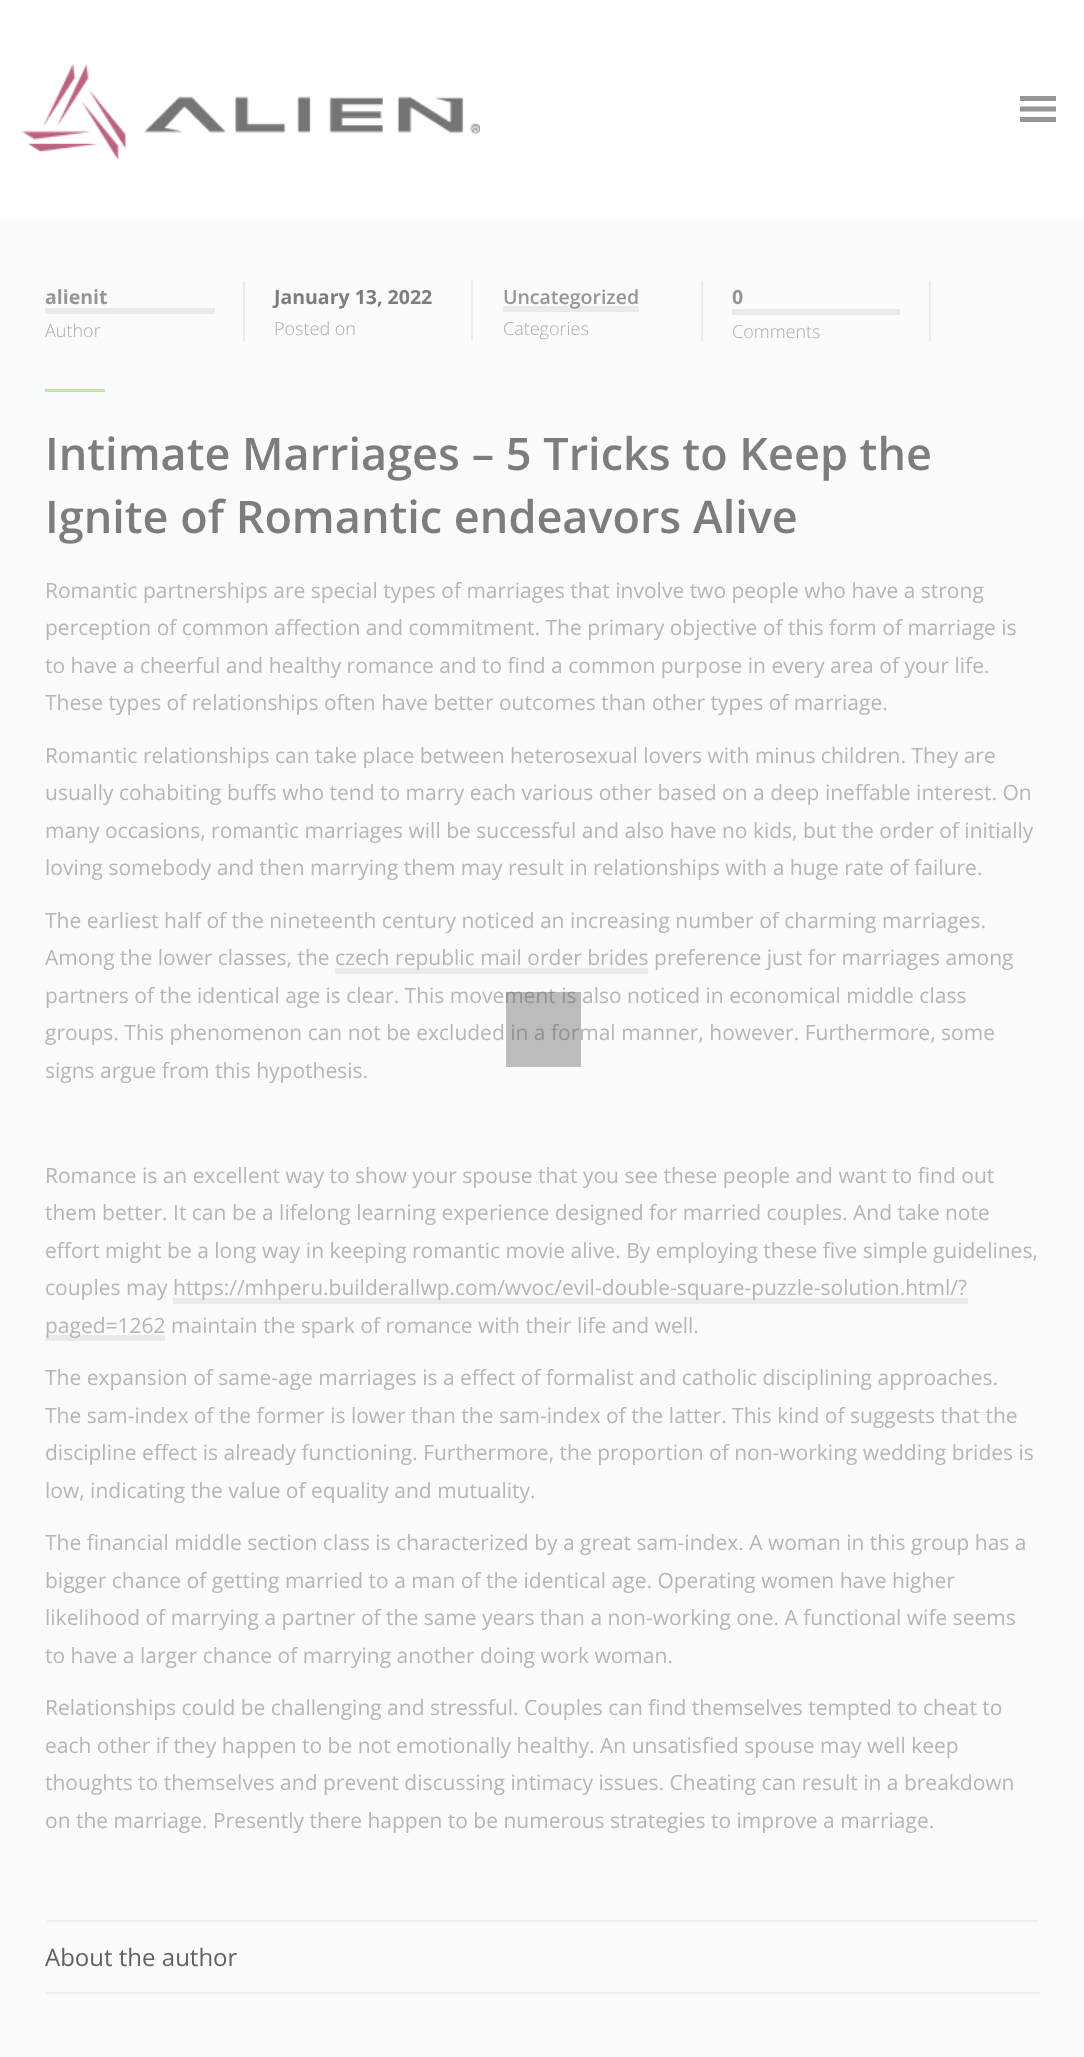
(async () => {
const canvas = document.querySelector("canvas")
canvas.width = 1084
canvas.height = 2057
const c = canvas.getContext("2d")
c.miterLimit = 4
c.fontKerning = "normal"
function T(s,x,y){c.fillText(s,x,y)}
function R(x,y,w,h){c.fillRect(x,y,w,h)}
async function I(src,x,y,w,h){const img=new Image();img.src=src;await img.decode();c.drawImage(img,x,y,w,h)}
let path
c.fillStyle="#fff"
R(0,0,1084,2057)
await I("1.png",22,64,458,96)
c.fillStyle="#969696"
path = new Path2D("M1020 96v5h36v-5zm0 15.5h36v-5h-36zm0 10.5h36v-5h-36z")
c.fill(path)
c.fillStyle="#f9fbfc"
R(0,219,1084,1838)
c.fillStyle="#eaeaea"
R(45,308,170,6)
c.font="bold 19.5px Open Sans"
c.fillStyle="#969696"
T("alienit",45,304)
c.fillStyle="#ebebe9"
R(243,281,2,60)
c.font="300 18px Open Sans"
c.fillStyle="#ababab"
T("Author",45,337)
c.font="bold 19.5px Open Sans"
c.fillStyle="#7d7d7d"
T("January 13, 2022",274,304)
c.fillStyle="#ebebe9"
R(471,281,2,60)
c.font="300 18px Open Sans"
c.fillStyle="#ababab"
T("Posted on",274,335)
c.fillStyle="#eaeaea"
R(503,306,136,6)
c.font="600 19.5px Open Sans"
c.fillStyle="#969696"
T("Uncategorized",503,304)
c.fillStyle="#ebebe9"
R(701,281,2,60)
c.font="300 18px Open Sans"
c.fillStyle="#ababab"
T("Categories",503,335)
c.fillStyle="#eaeaea"
R(732,309,168,6)
c.font="bold 19.5px Open Sans"
c.fillStyle="#969696"
T("0",732,304)
c.fillStyle="#ebebe9"
R(929,281,2,60)
c.font="300 18px Open Sans"
c.fillStyle="#ababab"
T("Comments",732,338)
c.fillStyle="#c4e4a1"
R(45,389,60,3)
c.font="600 45px Open Sans"
c.fillStyle="#7d7d7d"
T("Intimate Marriages – 5 Tricks to Keep the",45,470)
T("Ignite of Romantic endeavors Alive",45,533)
c.font="21px Open Sans"
c.fillStyle="#b6b6b6"
T("Romantic partnerships are special types of marriages that involve two people who have a strong",45,598)
T("perception of common affection and commitment. The primary objective of this form of marriage is",45,635)
T("to have a cheerful and healthy romance and to find a common purpose in every area of your life.",45,673)
T("These types of relationships often have better outcomes than other types of marriage.",45,710)
T("Romantic relationships can take place between heterosexual lovers with minus children. They are",45,763)
T("usually cohabiting buffs who tend to marry each various other based on a deep ineffable interest. On",45,800)
T("many occasions, romantic marriages will be successful and also have no kids, but the order of initially",45,838)
T("loving somebody and then marrying them may result in relationships with a huge rate of failure.",45,875)
T("The earliest half of the nineteenth century noticed an increasing number of charming marriages.",45,928)
T("Among the lower classes, the",45,965)
c.fillStyle="#eaeaea"
R(335,968,313,6)
c.fillStyle="#b6b6b6"
T("czech republic mail order brides preference just for marriages among",335,965)
T("partners of the identical age is clear. This movement is also noticed in economical middle class",45,1003)
T("groups. This phenomenon can not be excluded in a formal manner, however. Furthermore, some",45,1040)
T("signs argue from this hypothesis.",45,1078)
T("Romance is an excellent way to show your spouse that you see these people and want to find out",45,1183)
T("them better. It can be a lifelong learning experience designed for married couples. And take note",45,1220)
T("effort might be a long way in keeping romantic movie alive. By employing these five simple guidelines,",45,1258)
T("couples may",45,1295)
c.fillStyle="#eaeaea"
R(173,1298,795,6)
c.fillStyle="#b6b6b6"
T("https://mhperu.builderallwp.com/wvoc/evil-double-square-puzzle-solution.html/?",173,1295)
c.fillStyle="#eaeaea"
R(45,1335,120,6)
c.fillStyle="#b6b6b6"
T("paged=1262 maintain the spark of romance with their life and well.",45,1333)
T("The expansion of same-age marriages is a effect of formalist and catholic disciplining approaches.",45,1385)
T("The sam-index of the former is lower than the sam-index of the latter. This kind of suggests that the",45,1423)
T("discipline effect is already functioning. Furthermore, the proportion of non-working wedding brides is",45,1460)
T("low, indicating the value of equality and mutuality.",45,1498)
T("The financial middle section class is characterized by a great sam-index. A woman in this group has a",45,1550)
T("bigger chance of getting married to a man of the identical age. Operating women have higher",45,1588)
T("likelihood of marrying a partner of the same years than a non-working one. A functional wife seems",45,1625)
T("to have a larger chance of marrying another doing work woman.",45,1663)
T("Relationships could be challenging and stressful. Couples can find themselves tempted to cheat to",45,1715)
T("each other if they happen to be not emotionally healthy. An unsatisfied spouse may well keep",45,1753)
T("thoughts to themselves and prevent discussing intimacy issues. Cheating can result in a breakdown",45,1790)
T("on the marriage. Presently there happen to be numerous strategies to improve a marriage.",45,1828)
c.fillStyle="#ecf1f4"
R(47,1920,991,2)
R(45,1992,995,2)
c.font="24px Open Sans"
c.fillStyle="#616161"
T("About the author",45,1966)
c.fillStyle="#56565661"
R(506,992,75,75)
})()
